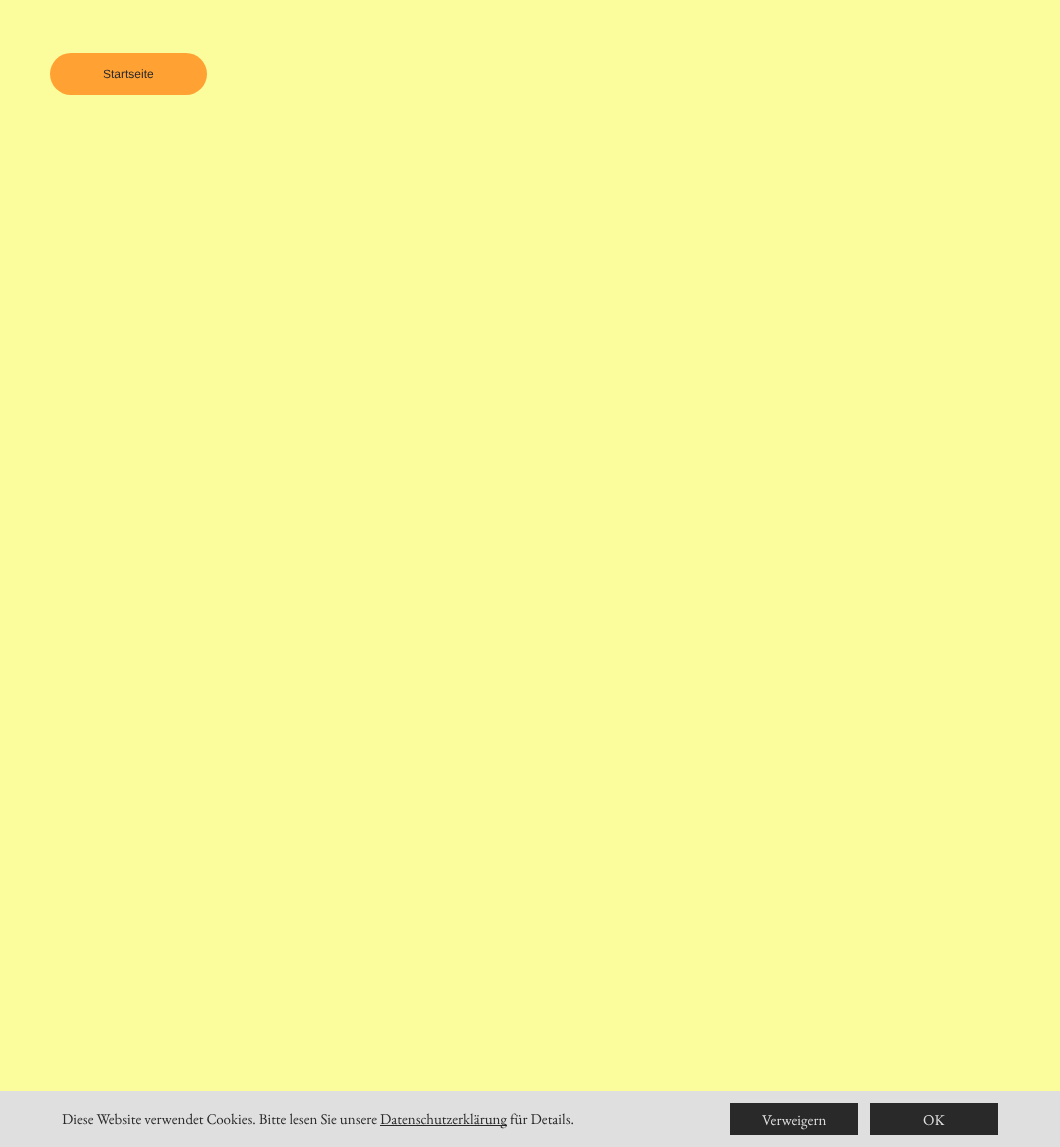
(async () => {
const canvas = document.querySelector("canvas")
canvas.width = 1060
canvas.height = 1147
const c = canvas.getContext("2d")
c.miterLimit = 4
c.fontKerning = "normal"
function T(s,x,y){c.fillText(s,x,y)}
function R(x,y,w,h){c.fillRect(x,y,w,h)}
function Q(x,y,w,h,r){c.beginPath();c.roundRect(x,y,w,h,r);c.fill()}
c.fillStyle="#fbfc9b"
R(0,0,1060,1147)
c.fillStyle="#ffa133"
Q(50,53,157,42,21)
c.font="12px Liberation Sans"
c.fillStyle="#292929"
T("Startseite",103,78)
c.fillStyle="#dfdfdf"
R(0,1091,1060,56)
c.font="15px EB Garamond"
c.fillStyle="#292929"
T("Diese Website verwendet Cookies. Bitte lesen Sie unsere",62,1124)
R(380,1125,127,1)
T("Datenschutzerklärung für Details.",380,1124)
R(730,1103,128,32)
c.fillStyle="#dfdfdf"
T("Verweigern",762,1125)
c.fillStyle="#292929"
R(870,1103,128,32)
c.fillStyle="#dfdfdf"
T("OK",923,1125)
})()
